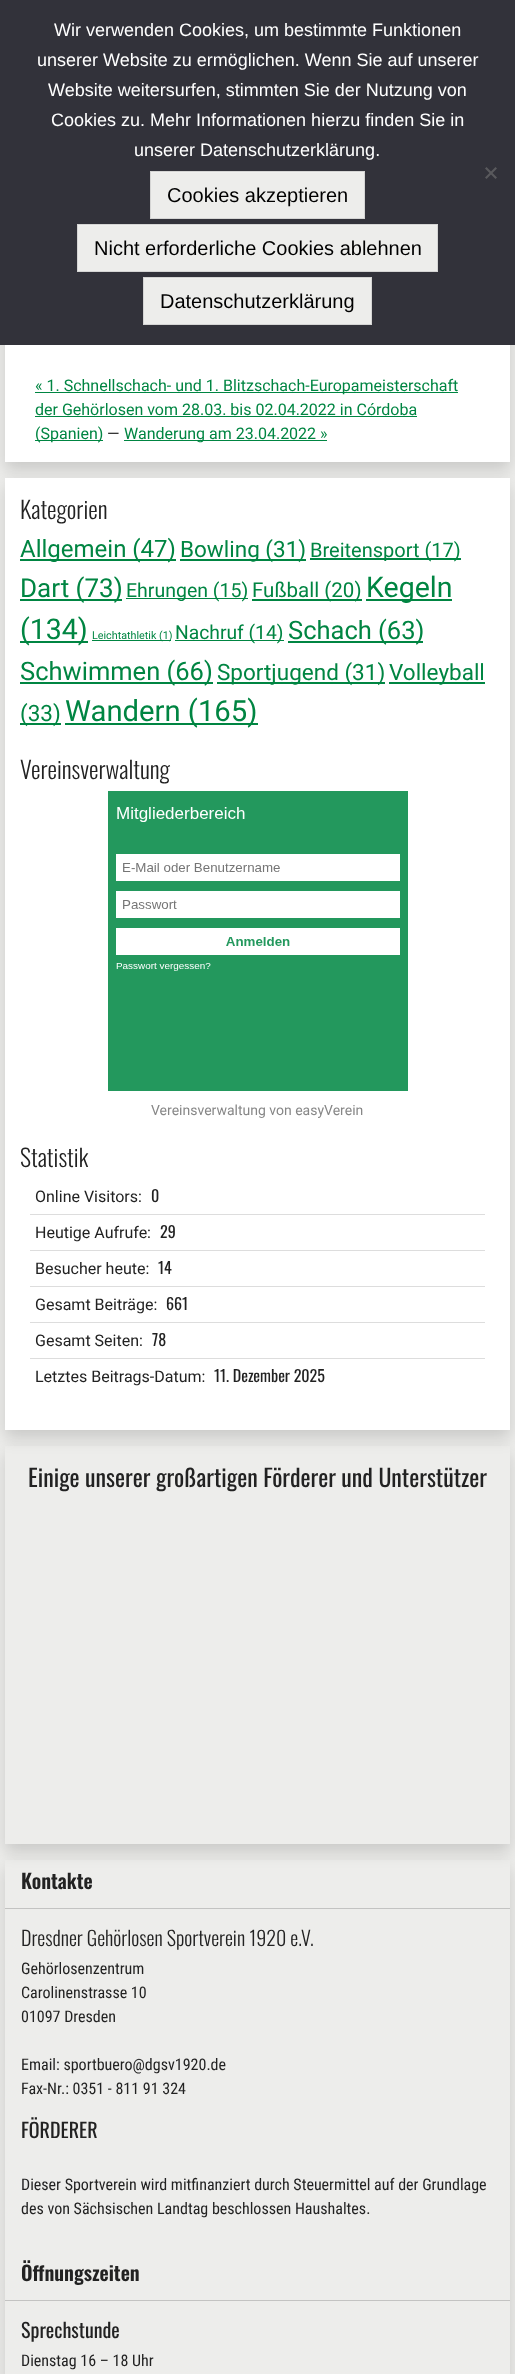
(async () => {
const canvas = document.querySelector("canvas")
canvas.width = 515
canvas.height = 2374
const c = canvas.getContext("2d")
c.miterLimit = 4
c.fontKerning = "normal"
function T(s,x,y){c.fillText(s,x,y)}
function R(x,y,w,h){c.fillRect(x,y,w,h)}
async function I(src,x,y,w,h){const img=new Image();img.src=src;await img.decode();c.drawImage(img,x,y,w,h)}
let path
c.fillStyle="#ededeb"
R(0,0,515,2374)
c.fillStyle="#00000026"
c.filter="blur(8px)"
c.beginPath()
c.rect(5,147,505,323)
c.fill()
c.filter="none"
c.fillStyle="#32323a"
R(0,0,515,345)
c.font="18px Liberation Sans"
c.fillStyle="#fff"
T("Wir verwenden Cookies, um bestimmte Funktionen",54,36)
T("unserer Website zu ermöglichen. Wenn Sie auf unserer",37,66)
T("Website weitersurfen, stimmten Sie der Nutzung von",48,96)
T("Cookies zu. Mehr Informationen hierzu finden Sie in",51,126)
T("unserer Datenschutzerklärung.",134,156)
c.fillStyle="#59595d"
path = new Path2D("M495.5 167l1.5 1.5l-10.5 10.5l-1.5-1.5z")
c.fill(path)
path = new Path2D("M485 168.5l1.5-1.5l10.5 10.5l-1.5 1.5z")
c.fill(path)
c.fillStyle="#ededeb"
R(151,173,213,45)
c.fillStyle="#f0f0ee"
R(151,172,213,1)
c.strokeStyle="#d5d5d4"
c.strokeRect(150.5,171.5,214,47)
c.font="20px Liberation Sans"
c.fillStyle="#000"
T("Cookies akzeptieren",167,202)
c.fillStyle="#ededeb"
R(78,226,359,45)
c.fillStyle="#f0f0ee"
R(78,225,359,1)
c.strokeRect(77.5,224.5,360,47)
c.fillStyle="#000"
T("Nicht erforderliche Cookies ablehnen",94,255)
c.fillStyle="#ededeb"
R(144,279,227,45)
c.fillStyle="#f0f0ee"
R(144,278,227,1)
c.strokeRect(143.5,277.5,228,47)
c.fillStyle="#000"
T("Datenschutzerklärung",160,308)
c.fillStyle="#00000026"
c.filter="blur(8px)"
c.beginPath()
c.rect(5,486,505,952)
c.fill()
c.filter="none"
c.fillStyle="#fff"
R(5,345,505,117)
c.fillStyle="#008542"
R(35,392,423,1)
c.font="16px Roboto"
T("« 1. Schnellschach- und 1. Blitzschach-Europameisterschaft",35,391)
T("der Gehörlosen vom 28.03. bis 02.04.2022 in Córdoba",35,415)
R(35,416,382,1)
R(35,440,68,1)
T("(Spanien)",35,439)
c.fillStyle="#222"
T("—",107,439)
c.fillStyle="#008542"
R(124,440,203,1)
T("Wanderung am 23.04.2022 »",124,439)
c.fillStyle="#fff"
R(5,478,505,952)
c.font="300 23.9px Oswald"
c.fillStyle="#222"
T("Kategorien",20,519)
c.fillStyle="#008542"
R(20,559,156,2)
c.font="24px Roboto"
T("Allgemein (47)",20,557)
R(180,559,126,2)
c.font="22.5px Roboto"
T("Bowling (31)",180,557)
R(310,558,151,2)
c.font="20px Roboto"
T("Breitensport (17)",310,557)
R(20,599,102,2)
c.font="26px Roboto"
T("Dart (73)",20,597)
R(126,598,122,1)
c.font="19.5px Roboto"
T("Ehrungen (15)",126,597)
R(252,599,110,2)
c.font="20.5px Roboto"
T("Fußball (20)",252,597)
R(366,599,86,2)
c.font="28.5px Roboto"
T("Kegeln",366,597)
R(20,641,68,2)
T("(134)",20,639)
R(92,640,79,1)
c.font="10.75px Roboto"
T("Leichtathletik (1)",92,639)
R(175,640,109,1)
c.font="19.25px Roboto"
T("Nachruf (14)",175,639)
R(288,641,135,2)
c.font="25.5px Roboto"
T("Schach (63)",288,639)
R(20,682,193,2)
T("Schwimmen (66)",20,680)
R(217,682,168,2)
c.font="22.5px Roboto"
T("Sportjugend (31)",217,680)
R(389,682,96,2)
T("Volleyball",389,680)
R(20,723,41,2)
T("(33)",20,721)
R(65,723,193,2)
c.font="29.25px Roboto"
T("Wandern (165)",65,721)
c.font="300 23.9px Oswald"
c.fillStyle="#222"
T("Vereinsverwaltung",20,779)
await I("1.png",108,791,300,300)
c.font="14px Roboto"
c.fillStyle="#878787"
T("Vereinsverwaltung von easyVerein",151,1115)
c.font="300 23.9px Oswald"
c.fillStyle="#222"
T("Statistik",20,1167)
c.fillStyle="#ddd"
R(30,1214,455,1)
c.font="16px Roboto"
c.fillStyle="#222"
T("Online Visitors:",35,1202)
c.font="16px Oswald"
T("0",151,1202)
c.fillStyle="#ddd"
R(30,1250,455,1)
c.font="16px Roboto"
c.fillStyle="#222"
T("Heutige Aufrufe:",35,1238)
c.font="16px Oswald"
T("29",160,1238)
c.fillStyle="#ddd"
R(30,1286,455,1)
c.font="16px Roboto"
c.fillStyle="#222"
T("Besucher heute:",35,1274)
c.font="16px Oswald"
T("14",158,1274)
c.fillStyle="#ddd"
R(30,1322,455,1)
c.font="16px Roboto"
c.fillStyle="#222"
T("Gesamt Beiträge:",35,1310)
c.font="16px Oswald"
T("661",166,1310)
c.fillStyle="#ddd"
R(30,1358,455,1)
c.font="16px Roboto"
c.fillStyle="#222"
T("Gesamt Seiten:",35,1346)
c.font="16px Oswald"
T("78",152,1346)
c.font="16px Roboto"
T("Letztes Beitrags-Datum:",35,1382)
c.font="16px Oswald"
T("11. Dezember 2025",214,1382)
c.save()
path = new Path2D("M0 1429h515v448h-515zm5 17h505v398h-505z")
c.clip(path,"evenodd")
c.fillStyle="#00000026"
c.filter="blur(8px)"
c.beginPath()
c.rect(5,1454,505,398)
c.fill()
c.filter="none"
c.restore()
c.font="23.9px Oswald"
T("Einige unserer großartigen Förderer und Unterstützer",28,1487)
c.save()
path = new Path2D("M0 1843h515v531h-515zm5 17h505v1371h-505z")
c.clip(path,"evenodd")
c.fillStyle="#00000026"
c.filter="blur(8px)"
c.beginPath()
c.rect(5,1868,505,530)
c.fill()
c.filter="none"
c.restore()
c.fillStyle="#c3c3c2"
R(5,1908,505,1)
c.font="600 20px Oswald"
c.fillStyle="#222"
T("Kontakte",21,1889)
c.font="300 20px Oswald"
T("Dresdner Gehörlosen Sportverein 1920 e.V.",21,1946)
c.font="16px Roboto Condensed"
T("Gehörlosenzentrum",21,1974)
T("Carolinenstrasse 10",21,1998)
T("01097 Dresden",21,2022)
T("Email: sportbuero@dgsv1920.de",21,2070)
T("Fax-Nr.: 0351 - 811 91 324",21,2094)
c.font="20px Oswald"
T("FÖRDERER",21,2138)
c.font="16px Roboto Condensed"
T("Dieser Sportverein wird mitfinanziert durch Steuermittel auf der Grundlage",21,2190)
T("des von Sächsischen Landtag beschlossen Haushaltes.",21,2214)
c.fillStyle="#c3c3c2"
R(5,2300,505,1)
c.font="600 20px Oswald"
c.fillStyle="#222"
T("Öffnungszeiten",21,2281)
c.font="20px Oswald"
T("Sprechstunde",21,2338)
c.font="16px Roboto Condensed"
T("Dienstag 16 – 18 Uhr",21,2366)
})()
